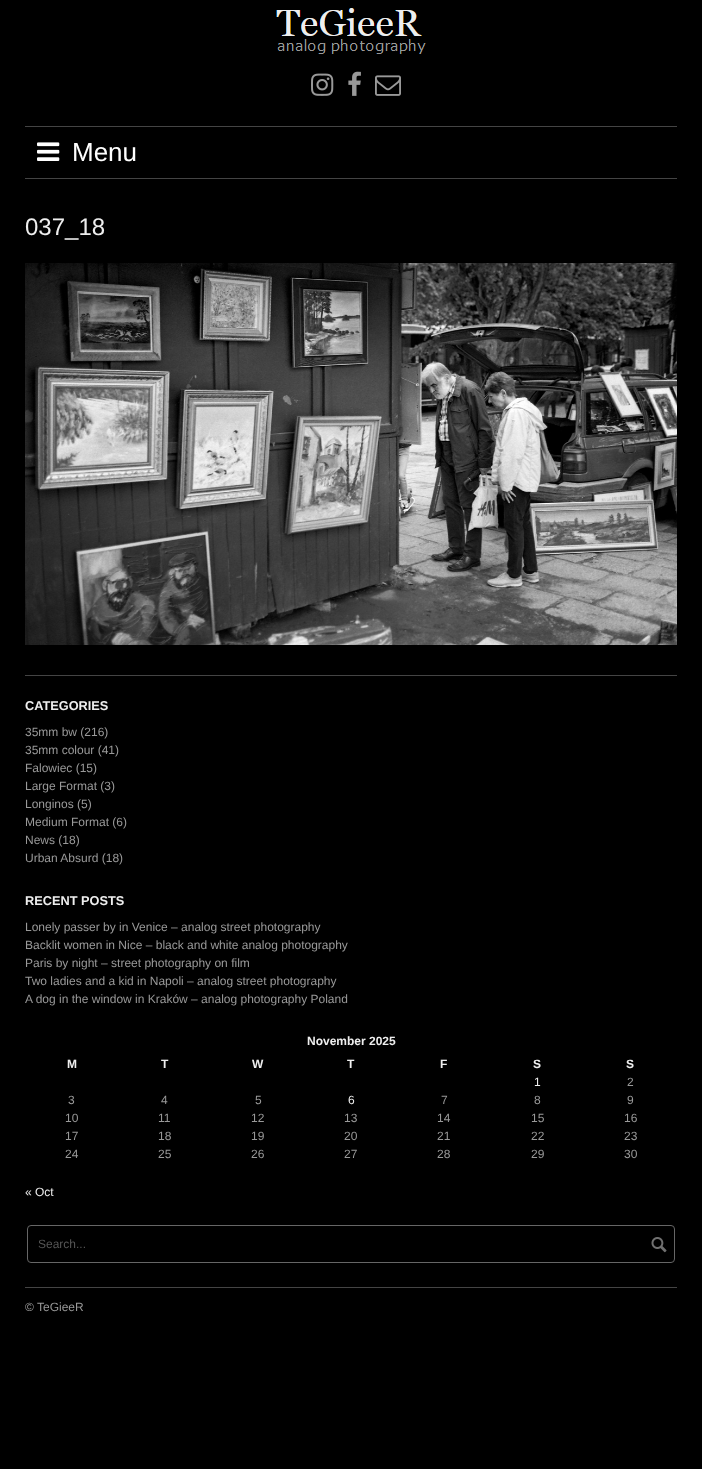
(async () => {
const canvas = document.querySelector("canvas")
canvas.width = 702
canvas.height = 1469
const c = canvas.getContext("2d")
c.miterLimit = 4
c.fontKerning = "normal"
function T(s,x,y){c.fillText(s,x,y)}
function R(x,y,w,h){c.fillRect(x,y,w,h)}
async function I(src,x,y,w,h){const img=new Image();img.src=src;await img.decode();c.drawImage(img,x,y,w,h)}
c.fillStyle="#000"
R(0,0,702,1469)
await I("1.png",276,8,150,46)
await I("2.png",311,73,23,23)
await I("3.png",348,71,13,25)
await I("4.png",375,75,26,21)
c.fillStyle="#444"
R(25,126,652,1)
R(25,178,652,1)
await I("5.png",37,142,23,19)
c.font="26px Liberation Sans"
c.fillStyle="#fff"
T("Menu",72,161)
c.font="24px Liberation Sans"
c.fillStyle="#eee"
T("037_18",25,235)
await I("6.png",25,263,652,382)
c.fillStyle="#444"
R(25,675,652,1)
c.font="bold 12.75px Liberation Sans"
c.fillStyle="#eee"
T("CATEGORIES",25,710)
c.font="12px Liberation Sans"
c.fillStyle="#999"
T("35mm bw (216)",25,736)
T("35mm colour (41)",25,754)
T("Falowiec (15)",25,772)
T("Large Format (3)",25,790)
T("Longinos (5)",25,808)
T("Medium Format (6)",25,826)
T("News (18)",25,844)
T("Urban Absurd (18)",25,862)
c.font="bold 12.75px Liberation Sans"
c.fillStyle="#eee"
T("RECENT POSTS",25,905)
c.font="12px Liberation Sans"
c.fillStyle="#999"
T("Lonely passer by in Venice – analog street photography",25,931)
T("Backlit women in Nice – black and white analog photography",25,949)
T("Paris by night – street photography on film",25,967)
T("Two ladies and a kid in Napoli – analog street photography",25,985)
T("A dog in the window in Kraków – analog photography Poland",25,1003)
c.font="bold 12px Liberation Sans"
c.fillStyle="#eee"
T("November 2025",307,1045)
T("M",67,1068)
T("T",161,1068)
T("W",252,1068)
T("T",347,1068)
T("F",440,1068)
T("S",533,1068)
T("S",626,1068)
c.font="12px Liberation Sans"
T("1",534,1086)
c.fillStyle="#999"
T("2",627,1086)
T("3",68,1104)
T("4",161,1104)
T("5",255,1104)
c.fillStyle="#eee"
T("6",348,1104)
c.fillStyle="#999"
T("7",441,1104)
T("8",534,1104)
T("9",627,1104)
T("10",65,1122)
T("11",158,1122)
T("12",251,1122)
T("13",344,1122)
T("14",437,1122)
T("15",531,1122)
T("16",624,1122)
T("17",65,1140)
T("18",158,1140)
T("19",251,1140)
T("20",344,1140)
T("21",437,1140)
T("22",531,1140)
T("23",624,1140)
T("24",65,1158)
T("25",158,1158)
T("26",251,1158)
T("27",344,1158)
T("28",437,1158)
T("29",531,1158)
T("30",624,1158)
c.fillStyle="#eee"
T("« Oct",25,1196)
c.beginPath()
c.roundRect(27.5,1225.5,647,37,3.5)
c.strokeStyle="#666"
c.stroke()
c.fillStyle="#555"
T("Search...",38,1248)
await I("7.png",651,1237,16,16)
c.fillStyle="#444"
R(25,1287,652,1)
c.fillStyle="#999"
T("© TeGieeR",25,1311)
})()
